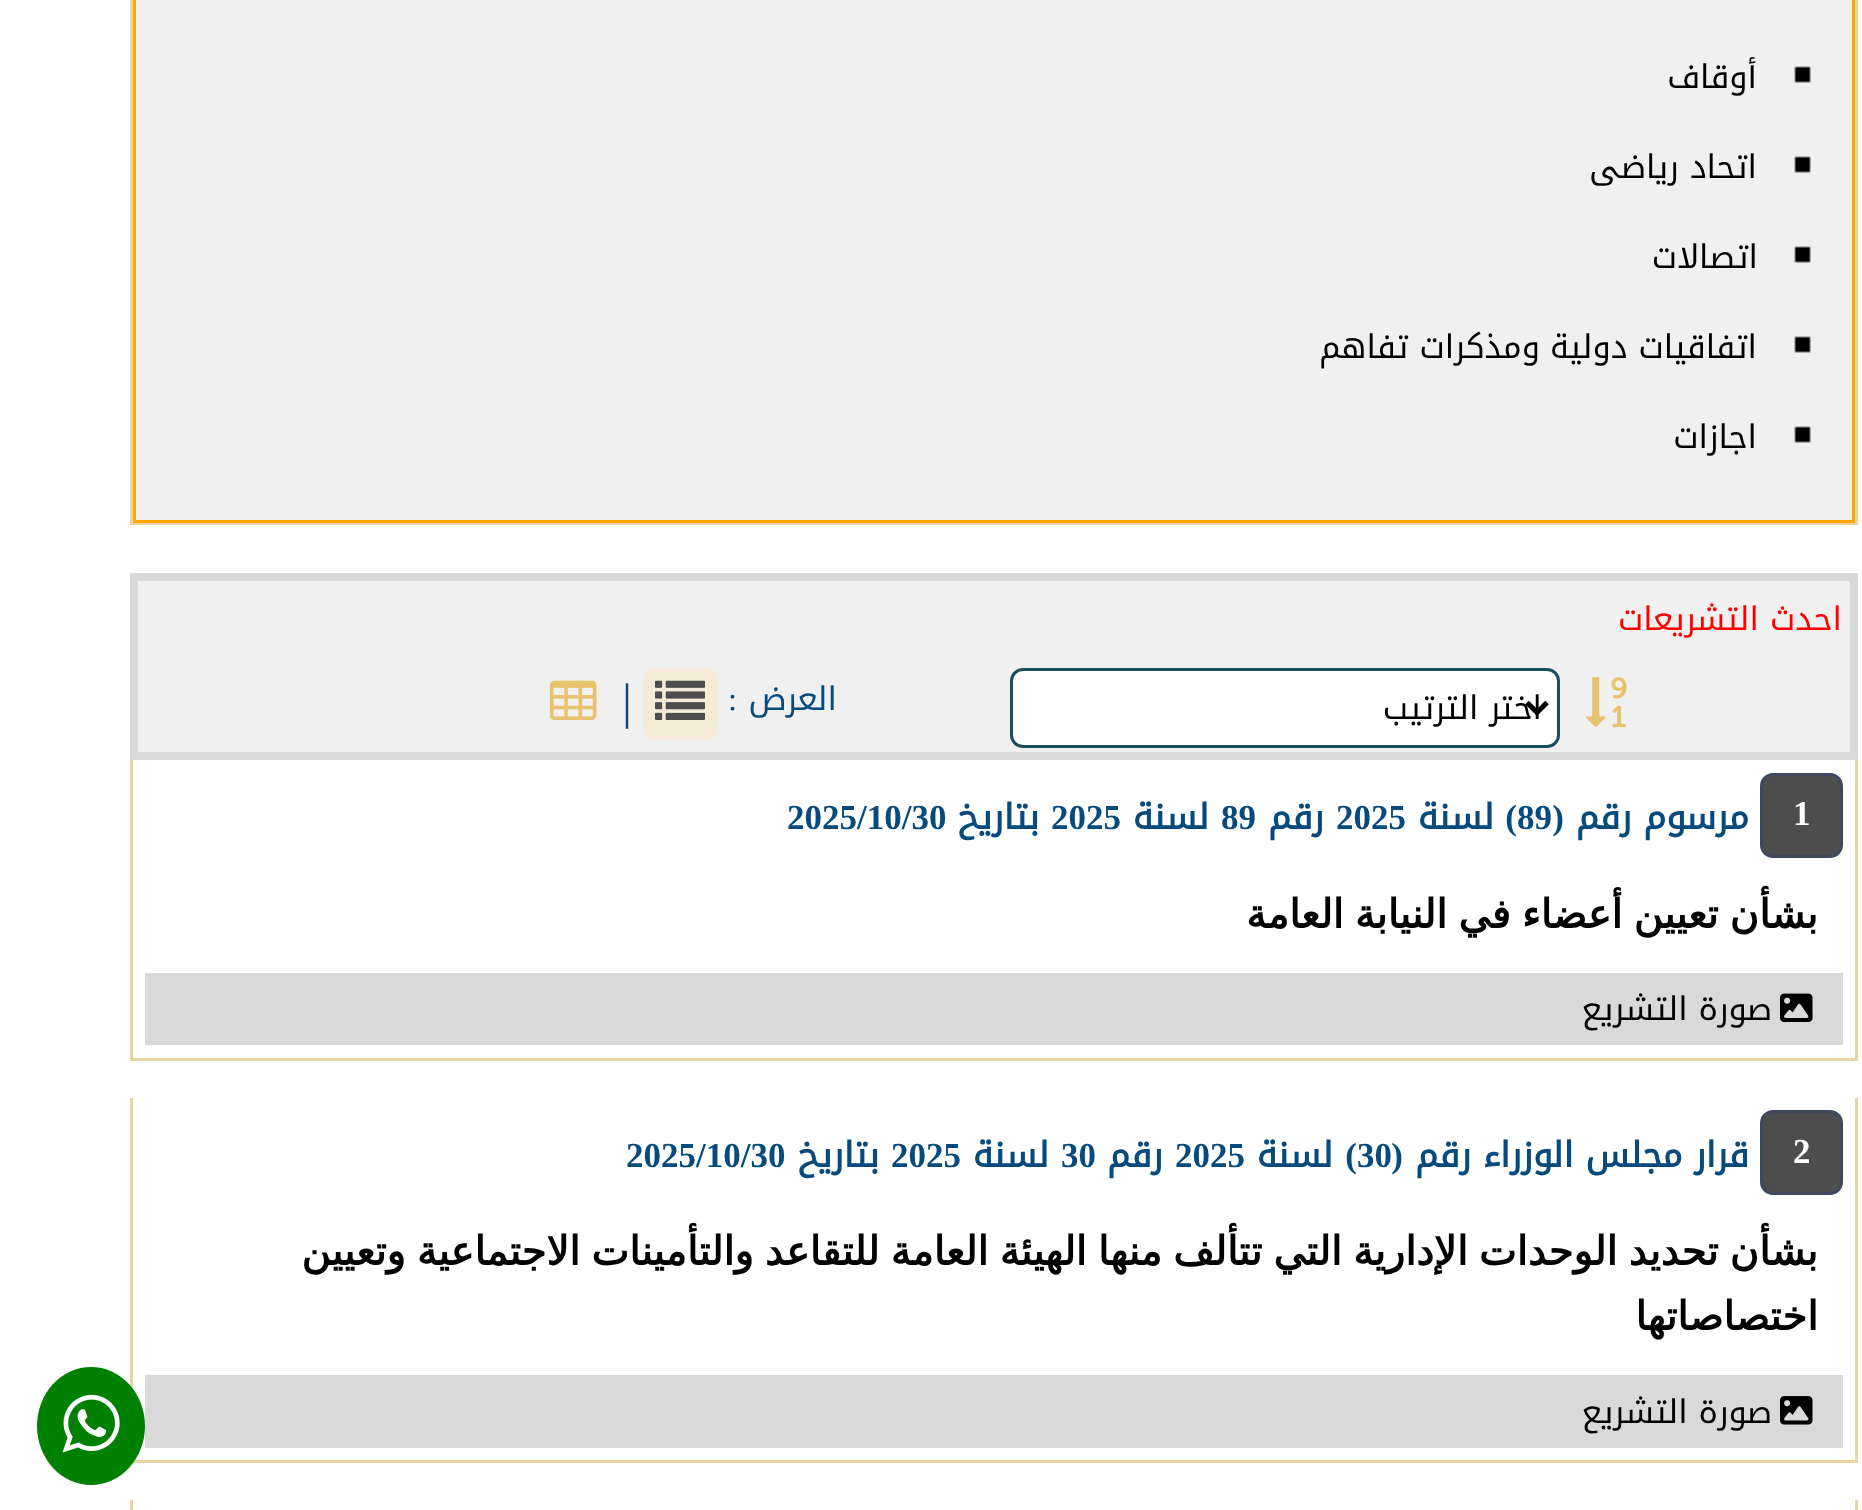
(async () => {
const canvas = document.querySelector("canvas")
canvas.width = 1862
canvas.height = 1510
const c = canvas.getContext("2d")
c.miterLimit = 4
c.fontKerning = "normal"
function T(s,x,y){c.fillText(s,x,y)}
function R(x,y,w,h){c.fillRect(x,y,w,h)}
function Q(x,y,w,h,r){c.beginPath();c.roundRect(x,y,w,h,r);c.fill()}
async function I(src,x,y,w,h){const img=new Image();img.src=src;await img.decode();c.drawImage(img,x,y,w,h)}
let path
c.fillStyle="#fff"
R(0,0,1862,1510)
c.strokeStyle="#ebd4a4"
c.lineWidth=3
c.strokeRect(131.5,-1.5,1725,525)
c.fillStyle="#f0f0f0"
c.beginPath()
c.rect(134.5,-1.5,1719,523)
c.fill()
c.strokeStyle="#ffa500"
c.stroke()
await I("1.png",1794,66,17,17)
c.direction="rtl"
c.font="32.5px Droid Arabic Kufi"
c.fillStyle="#000"
T("أوقاف",1757,88)
await I("1.png",1794,156,17,17)
T("اتحاد رياضى",1757,178)
await I("1.png",1794,246,17,17)
T("اتصالات",1758,268)
await I("1.png",1794,336,17,17)
T("اتفاقيات دولية",1757,358)
T("ومذكرات تفاهم",1540,358)
await I("1.png",1794,426,17,17)
T("اجازات",1757,448)
c.fillStyle="#f0f0f0"
c.beginPath()
c.rect(134,577,1720,179)
c.fill()
c.strokeStyle="#dad9d9"
c.lineWidth=8
c.stroke()
c.fillStyle="#f00"
T("احدث التشريعات",1842,630)
await I("2.png",1585,677,42,51)
c.fillStyle="#fff"
c.beginPath()
c.roundRect(1011.5,669.5,547,77,11.5)
c.fill()
c.strokeStyle="#1a4e64"
c.lineWidth=3
c.stroke()
path = new Path2D("M1527 702.5l10 10l10-10")
c.strokeStyle="#000"
c.lineWidth=5
c.stroke(path)
c.fillStyle="#000"
T("اختر الترتيب",1542,719)
c.fillStyle="#074a7e"
T("العرض",837,710)
c.font="32.5px Liberation Serif"
T(":",737,710)
c.fillStyle="#f5ecd8"
Q(643,668,75,72,13)
await I("3.png",655,680,50,40)
c.direction="ltr"
c.font="50px Liberation Serif"
c.fillStyle="#074a7e"
T("|",622,718)
await I("4.png",550,680,47,40)
c.fillStyle="#ebd4a4"
R(1855,760,3,300)
R(130,1058,1728,3)
R(130,760,3,300)
c.fillStyle="#4d4d4d"
c.beginPath()
c.roundRect(1761.5,774.5,80,82,11.5)
c.fill()
c.strokeStyle="#40485c"
c.lineWidth=3
c.stroke()
c.font="bold 35px Liberation Serif"
c.fillStyle="#fff"
T("1",1793,825)
c.direction="rtl"
c.font="bold 35px Droid Arabic Kufi"
c.fillStyle="#074a7e"
T("مرسوم رقم",1749,829)
c.font="bold 35px Liberation Serif"
T("(",1564,829)
c.direction="ltr"
T("89",1517,829)
c.direction="rtl"
T(")",1517,829)
c.font="bold 35px Droid Arabic Kufi"
T("لسنة",1494,829)
c.direction="ltr"
c.font="bold 35px Liberation Serif"
T("2025",1336,829)
c.direction="rtl"
c.font="bold 35px Droid Arabic Kufi"
T("رقم",1324,829)
c.direction="ltr"
c.font="bold 35px Liberation Serif"
T("89",1221,829)
c.direction="rtl"
c.font="bold 35px Droid Arabic Kufi"
T("لسنة",1209,829)
c.direction="ltr"
c.font="bold 35px Liberation Serif"
T("2025",1051,829)
c.direction="rtl"
c.font="bold 35px Droid Arabic Kufi"
T("بتاريخ",1039,829)
c.direction="ltr"
c.font="bold 35px Liberation Serif"
T("2025/10/30",787,829)
c.wordSpacing="-1.6px"
c.direction="rtl"
c.font="bold 40px DejaVu Sans"
c.fillStyle="#000"
T("بشأن تعيين أعضاء في النيابة العامة",1818,928)
c.fillStyle="#dad9d9"
R(145,973,1698,72)
await I("5.png",1780,993,33,29)
c.wordSpacing="0px"
c.font="32.5px Droid Arabic Kufi"
c.fillStyle="#000"
T("صورة التشريع",1772,1020)
c.fillStyle="#ebd4a4"
R(1855,1098,3,365)
R(130,1460,1728,3)
R(130,1098,3,291)
c.fillStyle="#4d4d4d"
c.beginPath()
c.roundRect(1761.5,1111.5,80,82,11.5)
c.fill()
c.stroke()
c.direction="ltr"
c.font="bold 35px Liberation Serif"
c.fillStyle="#fff"
T("2",1793,1163)
c.direction="rtl"
c.font="bold 35px Droid Arabic Kufi"
c.fillStyle="#074a7e"
T("قرار مجلس الوزراء رقم",1749,1167)
c.font="bold 35px Liberation Serif"
T("(",1403,1167)
c.direction="ltr"
T("30",1357,1167)
c.direction="rtl"
T(")",1357,1167)
c.font="bold 35px Droid Arabic Kufi"
T("لسنة",1333,1167)
c.direction="ltr"
c.font="bold 35px Liberation Serif"
T("2025",1175,1167)
c.direction="rtl"
c.font="bold 35px Droid Arabic Kufi"
T("رقم",1163,1167)
c.direction="ltr"
c.font="bold 35px Liberation Serif"
T("30",1061,1167)
c.direction="rtl"
c.font="bold 35px Droid Arabic Kufi"
T("لسنة",1049,1167)
c.direction="ltr"
c.font="bold 35px Liberation Serif"
T("2025",891,1167)
c.direction="rtl"
c.font="bold 35px Droid Arabic Kufi"
T("بتاريخ",879,1167)
c.direction="ltr"
c.font="bold 35px Liberation Serif"
T("2025/10/30",626,1167)
c.wordSpacing="-1.6px"
c.direction="rtl"
c.font="bold 40px DejaVu Sans"
c.fillStyle="#000"
T("بشأن تحديد الوحدات الإدارية التي تتألف منها الهيئة العامة للتقاعد والتأمينات الاجتماعية وتعيين",1818,1265)
c.wordSpacing="0px"
T("اختصاصاتها",1818,1330)
c.fillStyle="#dad9d9"
R(145,1375,1698,73)
await I("6.png",1780,1396,33,29)
c.font="32.5px Droid Arabic Kufi"
c.fillStyle="#000"
T("صورة التشريع",1772,1423)
c.fillStyle="#ebd4a4"
R(1855,1500,3,10)
R(130,1500,3,10)
c.fillStyle="#008000"
c.beginPath()
c.ellipse(91,1426,54,59,0,0,7)
c.fill()
await I("7.png",62,1394,58,59)
})()
